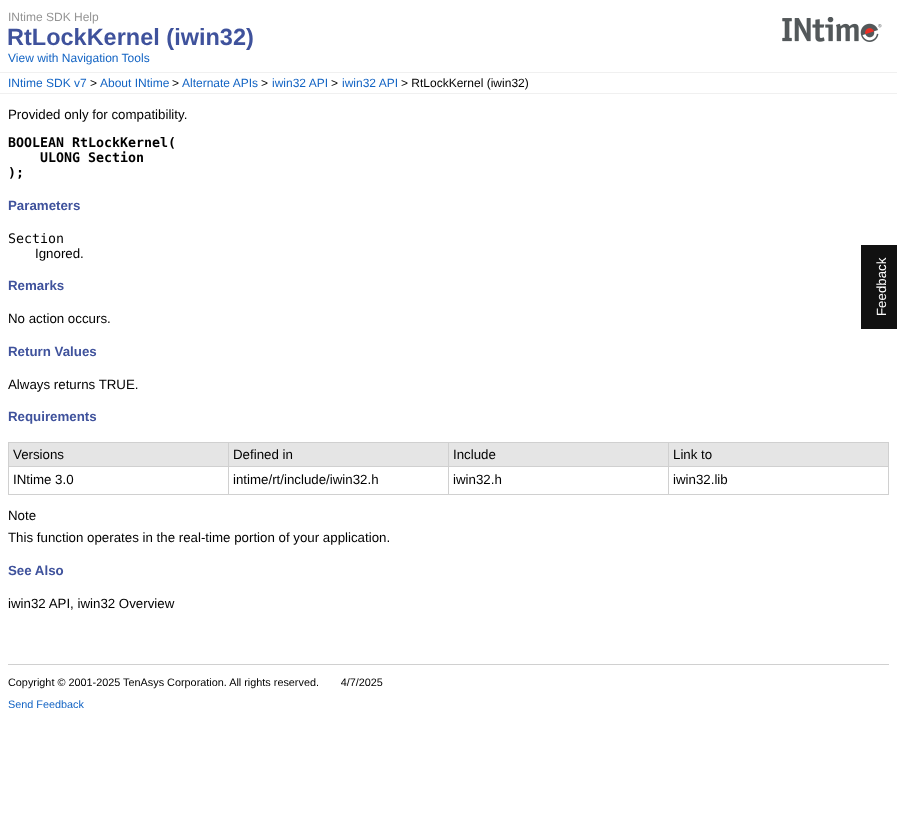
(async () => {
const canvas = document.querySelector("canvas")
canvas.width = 897
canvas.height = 816
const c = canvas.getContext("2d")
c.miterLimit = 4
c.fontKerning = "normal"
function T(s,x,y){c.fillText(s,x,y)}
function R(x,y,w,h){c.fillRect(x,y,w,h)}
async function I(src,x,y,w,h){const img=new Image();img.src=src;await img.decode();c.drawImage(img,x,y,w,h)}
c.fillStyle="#fff"
R(0,0,897,816)
c.font="12px Liberation Sans"
c.fillStyle="#949494"
T("INtime SDK Help",8,21)
await I("1.png",782,17,100,25)
c.font="bold 23.5px Liberation Sans"
c.fillStyle="#3f529c"
T("RtLockKernel (iwin32)",7,45)
c.font="12px Liberation Sans"
c.fillStyle="#1364c4"
T("View with Navigation Tools",8,62)
c.fillStyle="#f0f0f0"
R(0,72,897,1)
R(0,93,897,1)
c.fillStyle="#1364c4"
T("INtime SDK v7",8,87)
c.fillStyle="#000"
T(">",90,87)
c.fillStyle="#1364c4"
T("About INtime",100,87)
c.fillStyle="#000"
T(">",172,87)
c.fillStyle="#1364c4"
T("Alternate APIs",182,87)
c.fillStyle="#000"
T(">",261,87)
c.fillStyle="#1364c4"
T("iwin32 API",272,87)
c.fillStyle="#000"
T(">",331,87)
c.fillStyle="#1364c4"
T("iwin32 API",342,87)
c.fillStyle="#000"
T("> RtLockKernel (iwin32)",401,87)
c.font="13.3px Liberation Sans"
T("Provided only for compatibility.",8,119)
c.font="bold 13.3px DejaVu Sans Mono"
T("BOOLEAN RtLockKernel(",8,147)
T("ULONG Section",40,162)
T(");",8,177)
c.font="bold 13.3px Liberation Sans"
c.fillStyle="#3f529c"
T("Parameters",8,210)
c.font="13.3px DejaVu Sans Mono"
c.fillStyle="#000"
T("Section",8,243)
c.font="13.3px Liberation Sans"
T("Ignored.",35,258)
c.font="bold 13.3px Liberation Sans"
c.fillStyle="#3f529c"
T("Remarks",8,290)
c.font="13.3px Liberation Sans"
c.fillStyle="#000"
T("No action occurs.",8,323)
c.font="bold 13.3px Liberation Sans"
c.fillStyle="#3f529c"
T("Return Values",8,356)
c.font="13.3px Liberation Sans"
c.fillStyle="#000"
T("Always returns TRUE.",8,389)
c.font="bold 13.3px Liberation Sans"
c.fillStyle="#3f529c"
T("Requirements",8,421)
c.fillStyle="#e5e5e5"
R(9,443,219,23)
c.fillStyle="#d0d0d0"
R(668,442,221,1)
R(668,466,221,1)
R(888,466,1,29)
R(668,494,221,1)
R(668,466,1,29)
R(448,466,221,1)
R(668,442,1,25)
R(448,442,221,1)
R(448,494,221,1)
R(448,466,1,29)
R(228,466,221,1)
R(448,442,1,25)
R(228,442,221,1)
R(228,494,221,1)
R(228,466,1,29)
R(8,466,221,1)
R(228,442,1,25)
R(8,442,221,1)
R(8,494,221,1)
R(8,466,1,29)
R(8,442,1,25)
c.font="13.3px Liberation Sans"
c.fillStyle="#000"
T("Versions",13,459)
c.fillStyle="#e5e5e5"
R(229,443,219,23)
c.fillStyle="#000"
T("Defined in",233,459)
c.fillStyle="#e5e5e5"
R(449,443,219,23)
c.fillStyle="#000"
T("Include",453,459)
c.fillStyle="#e5e5e5"
R(669,443,219,23)
c.fillStyle="#d0d0d0"
R(888,442,1,25)
c.fillStyle="#000"
T("Link to",673,459)
T("INtime 3.0",13,484)
T("intime/rt/include/iwin32.h",233,484)
T("iwin32.h",453,484)
T("iwin32.lib",673,484)
T("Note",8,520)
T("This function operates in the real-time portion of your application.",8,542)
c.font="bold 13.3px Liberation Sans"
c.fillStyle="#3f529c"
T("See Also",8,575)
c.font="13.3px Liberation Sans"
c.fillStyle="#000"
T("iwin32 API, iwin32 Overview",8,608)
c.fillStyle="#111"
R(861,245,36,84)
c.fillStyle="#fff"
c.save()
c.translate(886,316)
c.rotate(-90 * Math.PI / 180)
c.fillText("Feedback",0,0)
c.restore()
c.fillStyle="#d0d0d0"
R(8,664,881,1)
c.font="10.85px Liberation Sans"
c.fillStyle="#000"
T("Copyright © 2001-2025 TenAsys Corporation. All rights reserved.  4/7/2025",8,686)
c.fillStyle="#1364c4"
T("Send Feedback",8,708)
})()
